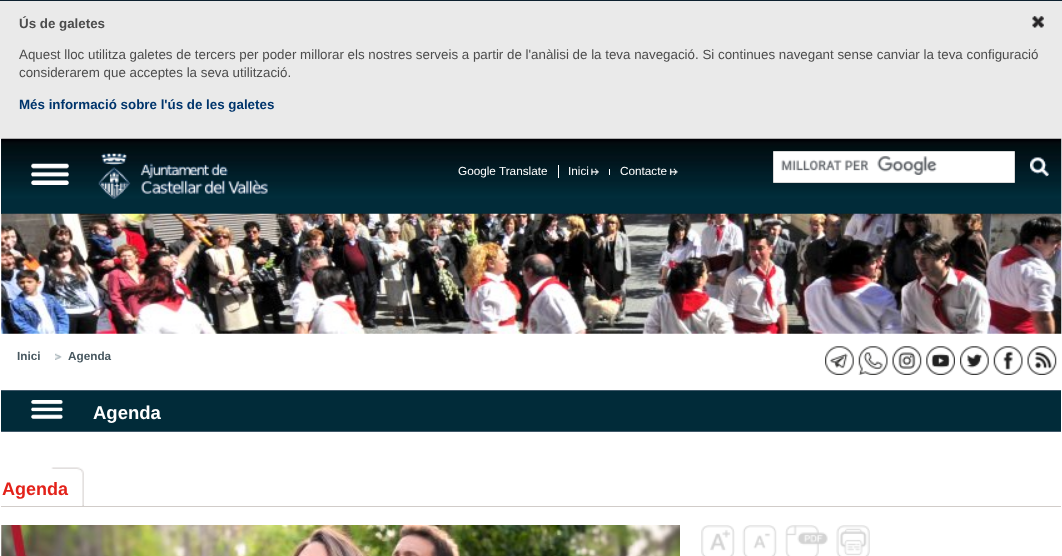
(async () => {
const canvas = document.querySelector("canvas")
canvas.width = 1062
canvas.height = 556
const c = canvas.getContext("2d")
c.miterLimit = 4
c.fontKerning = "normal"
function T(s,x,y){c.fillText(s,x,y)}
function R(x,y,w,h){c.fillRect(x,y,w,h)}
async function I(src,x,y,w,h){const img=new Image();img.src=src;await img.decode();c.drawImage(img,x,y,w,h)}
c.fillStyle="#fff"
R(0,0,1062,556)
c.fillStyle="#eaeaea"
R(0,1,1062,138)
c.fillStyle="#0d202f"
R(0,0,1062,1)
c.font="bold 13.35px Liberation Sans"
c.fillStyle="#4c4c4c"
T("Ús de galetes",19,28)
await I("1.png",1032,16,12,12)
c.font="13.35px Liberation Sans"
T("Aquest lloc utilitza galetes de tercers per poder millorar els nostres serveis a partir de l'anàlisi de la teva navegació. Si continues navegant sense canviar la teva configuració",19,59)
T("considerarem que acceptes la seva utilització.",19,77)
c.font="bold 13.35px Liberation Sans"
c.fillStyle="#00356c"
T("Més informació sobre l'ús de les galetes",19,109)
c.fillStyle="#0d202f"
R(1,139,1060,75)
await I("2.png",1,138,1061,76)
await I("3.png",31,163,38,22)
await I("4.png",98,153,170,46)
c.font="11.75px Liberation Sans"
c.fillStyle="#fff"
T("Google Translate",458,175)
R(558,165,1,13)
T("Inici",568,175)
R(609,169,1,6)
await I("5.png",591,168,8,7)
T("Contacte",620,175)
await I("6.png",669,168,9,7)
c.beginPath()
c.rect(773.5,151.5,241,31)
c.fill()
c.strokeStyle="#d9d9d9"
c.stroke()
await I("7.png",781,156,156,19)
await I("8.png",1030,157,19,20)
await I("9.png",1,213,1061,121)
c.font="bold 11.75px Liberation Sans"
c.fillStyle="#485860"
T("Inici",17,360)
await I("10.png",55,353,7,7)
T("Agenda",68,360)
await I("11.png",825,346,29,29)
await I("12.png",858,346,30,29)
await I("13.png",892,346,30,29)
await I("14.png",926,346,29,29)
await I("15.png",960,346,29,29)
await I("16.png",993,346,30,29)
await I("17.png",1027,346,30,29)
c.fillStyle="#405969"
R(1,431,1060,1)
R(1,390,1060,1)
c.fillStyle="#012b39"
R(1,391,1060,40)
await I("18.png",31,400,32,19)
c.font="bold 18.5px Liberation Sans"
c.fillStyle="#fff"
T("Agenda",93,419)
c.fillStyle="#d1ccc9"
R(1,506,1060,1)
await I("19.png",51,467,33,39)
c.font="bold 18px Liberation Sans"
c.fillStyle="#e32119"
T("Agenda",2,495)
await I("20.png",1,525,679,31)
await I("21.png",701,525,34,31)
await I("22.png",742,525,35,31)
await I("23.png",785,525,43,31)
await I("24.png",836,525,34,31)
})()
